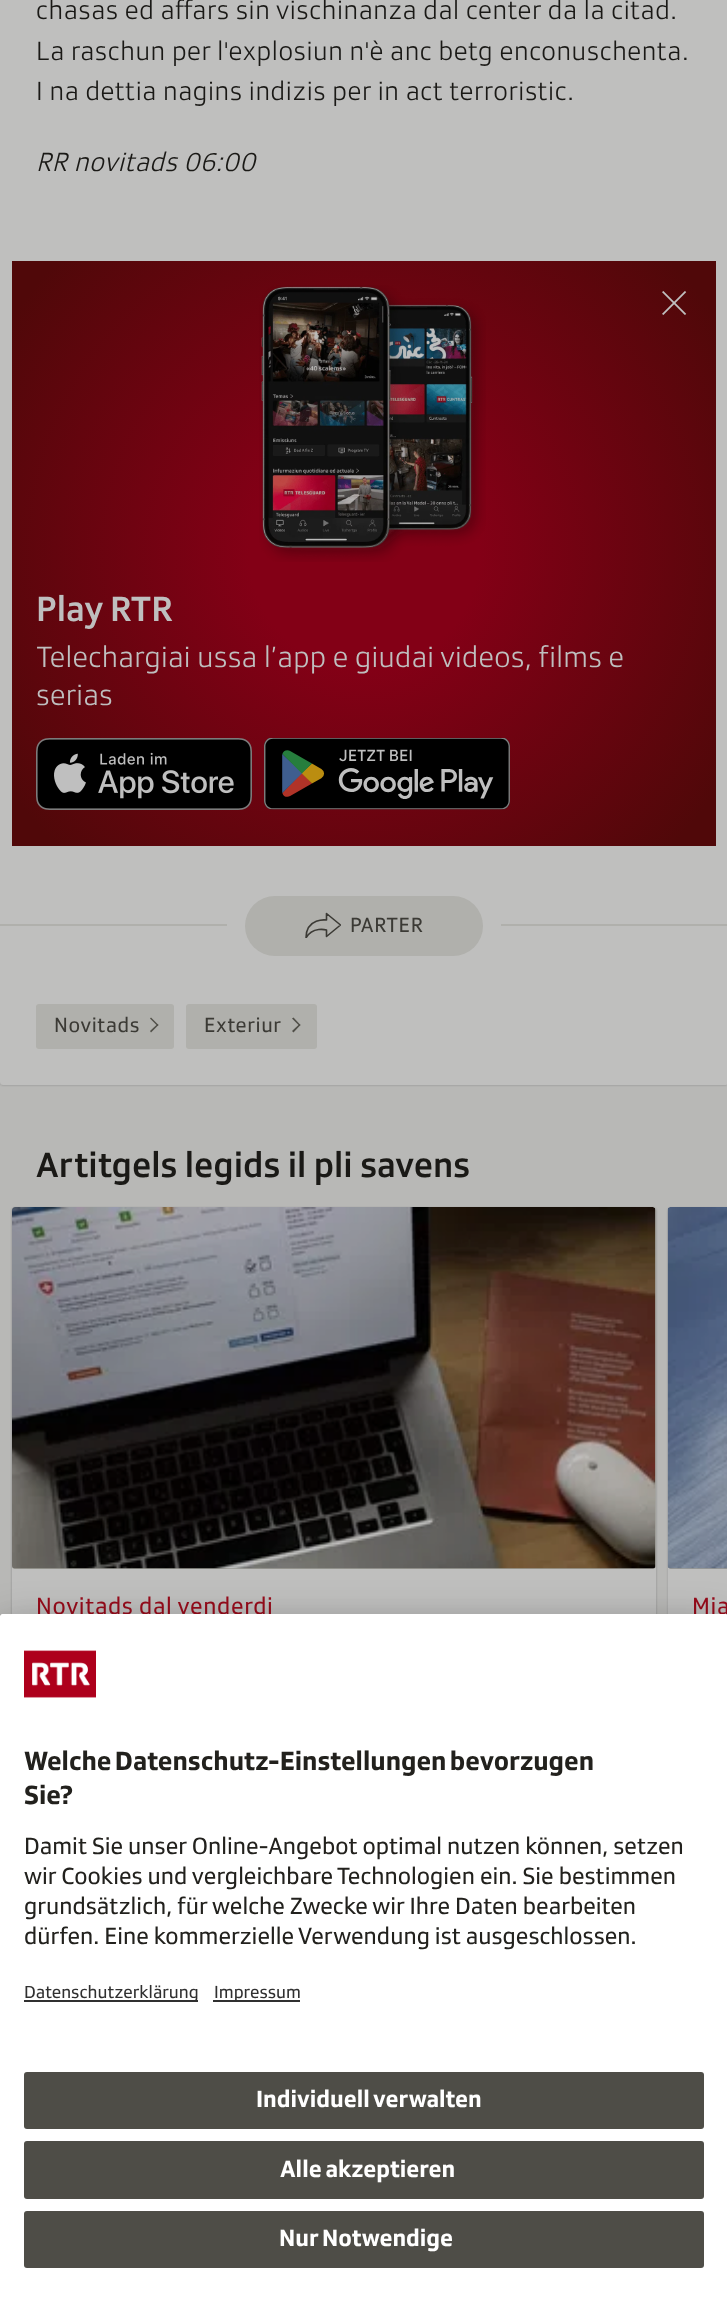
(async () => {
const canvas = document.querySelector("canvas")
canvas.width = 727
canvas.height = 2309
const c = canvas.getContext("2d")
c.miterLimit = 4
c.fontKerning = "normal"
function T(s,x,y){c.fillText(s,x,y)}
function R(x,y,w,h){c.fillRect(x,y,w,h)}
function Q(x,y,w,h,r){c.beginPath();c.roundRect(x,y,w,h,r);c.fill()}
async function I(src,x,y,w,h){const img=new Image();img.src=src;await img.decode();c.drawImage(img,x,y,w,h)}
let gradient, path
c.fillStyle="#b8b8b6"
R(0,0,727,2309)
c.fillStyle="#00000014"
c.filter="blur(1px)"
c.beginPath()
c.roundRect(0,-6,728,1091,3)
c.fill()
c.filter="none"
c.fillStyle="#00000029"
c.filter="blur(1px)"
c.beginPath()
c.roundRect(0,-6,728,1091,3)
c.fill()
c.filter="none"
c.fillStyle="#bfbfbe"
Q(0,-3,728,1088,3)
c.letterSpacing="0.6px"
c.font="300 27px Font"
c.fillStyle="#1a1916"
T("chasas ed affars sin vischinanza dal center da la citad.",36,19)
T("La raschun per l'explosiun n'è anc betg enconuschenta.",36,60)
T("I na dettia nagins indizis per in act terroristic.",36,100)
c.font="italic 300 27px Font"
T("RR novitads 06:00",36,171)
gradient = c.createRadialGradient(364,554,0,364,554,457)
gradient.addColorStop(.25,"#830016")
gradient.addColorStop(.93,"#500809")
c.fillStyle = gradient
R(12,261,704,585)
await I("1.png",259,285,227,277)
await I("2.png",662,291,25,24)
c.letterSpacing="0px"
c.font="500 36px Font"
c.fillStyle="#bfbfbf"
T("Play RTR",36,621)
c.letterSpacing="0.3px"
c.font="300 30px Font"
T("Telechargiai ussa l’app e giudai videos, films e",36,667)
T("serias",36,705)
await I("3.png",36,738,216,72)
await I("4.png",264,738,246,72)
c.fillStyle="#b0b0ac"
R(0,924,727,2)
c.fillStyle="#bfbfbe"
R(227,924,274,2)
c.fillStyle="#b0b0ac"
Q(245,896,238,60,30)
c.save()
c.beginPath()
c.rect(305,912,36,26)
c.clip()
path = new Path2D("M326.5 920c0 0-20.5-2.5-20.5 18c6.5-12 20.5-8 20.5-8v6.5l14-11.5l-14-11.5z")
c.strokeStyle="#3b3a35"
c.lineWidth=1.6
c.lineJoin="round"
c.stroke(path)
c.restore()
c.letterSpacing="0.6px"
c.font="21px Font"
c.fillStyle="#3b3a35"
T("PARTER",350,932)
c.fillStyle="#b0b0ac"
Q(36,1004,138,45,3)
c.fillStyle="#3b3a35"
T("Novitads",54,1032)
c.fillStyle="#504f48"
path = new Path2D("M150 1018.5l1-1l7.5 7.5l-1 1z")
c.fill(path)
path = new Path2D("M150 1031l7.5-7l1 1l-7.5 7.5z")
c.fill(path)
c.fillStyle="#b0b0ac"
Q(186,1004,131,45,3)
c.fillStyle="#3b3a35"
T("Exteriur",204,1032)
c.fillStyle="#504f48"
path = new Path2D("M292 1018.5l1.5-1l7 7.5l-1 1z")
c.fill(path)
path = new Path2D("M292 1031l7.5-7l1 1l-7 7.5z")
c.fill(path)
c.letterSpacing="0px"
c.font="500 36px Font"
c.fillStyle="#1a1916"
T("Artitgels legids il pli savens",36,1177)
c.fillStyle="#00000014"
c.filter="blur(1px)"
c.beginPath()
c.roundRect(12,1208,644,528,3)
c.fill()
c.filter="none"
c.fillStyle="#00000029"
c.filter="blur(1px)"
c.beginPath()
c.roundRect(12,1208,644,528,3)
c.fill()
c.filter="none"
c.fillStyle="#bfbfbe"
Q(12,1208,644,528,3)
c.fillStyle="#a4a49e"
Q(12,1208,644,361,3)
await I("5.png",12,1207,644,362)
c.fillStyle="#0000000a"
R(14,1568,640,1)
c.letterSpacing="0.6px"
c.font="24px Font"
c.fillStyle="#970c1b"
T("Novitads dal venderdi",36,1614)
c.fillStyle="#00000029"
c.filter="blur(1px)"
c.beginPath()
c.roundRect(668,1208,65,528,3)
c.fill()
c.filter="none"
c.fillStyle="#bfbfbe"
R(668,1567,59,48)
c.fillStyle="#a4a49e"
path = new Path2D("M671 1208h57v361h-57c-1.5 0-3-1.5-3-3v-355c0-1.5 1.5-3 3-3z")
c.fill(path)
await I("6.png",667,1207,60,362)
c.fillStyle="#0000000a"
R(669,1568,58,1)
c.fillStyle="#970c1b"
T("Mia",692,1614)
c.fillStyle="#0000004d"
c.filter="blur(21px)"
c.beginPath()
c.roundRect(0,1644,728,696,3)
c.fill()
c.filter="none"
c.fillStyle="#00000038"
c.filter="blur(19.5px)"
c.beginPath()
c.roundRect(0,1622,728,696,3)
c.fill()
c.filter="none"
c.fillStyle="#fff"
path = new Path2D("M3 1614h722c1.5 0 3 1.5 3 3v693h-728v-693c0-1.5 1.5-3 3-3z")
c.fill(path)
path = new Path2D("M3 1614h722c1.5 0 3 1.5 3 3v437h-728v-437c0-1.5 1.5-3 3-3z")
c.fill(path)
await I("7.png",24,1650,72,48)
c.letterSpacing="0px"
c.wordSpacing="-2px"
c.font="bold 27px Font"
c.fillStyle="#22211d"
T("Welche Datenschutz-Einstellungen bevorzugen",24,1770)
c.wordSpacing="0px"
T("Sie?",24,1804)
c.font="24px Font"
T("Damit Sie unser Online-Angebot optimal nutzen können, setzen",24,1854)
T("wir Cookies und vergleichbare Technologien ein. Sie bestimmen",24,1884)
T("grundsätzlich, für welche Zwecke wir Ihre Daten bearbeiten",24,1914)
T("dürfen. Eine kommerzielle Verwendung ist ausgeschlossen.",24,1944)
c.fillStyle="#303030"
R(24,2000,174,2)
c.font="18px Font"
T("Datenschutzerklärung",24,1998)
R(213,2000,87,2)
T("Impressum",214,1998)
c.fillStyle="#4e4d47"
Q(24,2072,680,57,3)
c.wordSpacing="-1px"
c.font="bold 24px Font"
c.fillStyle="#fff"
T("Individuell verwalten",256,2107)
c.fillStyle="#4e4d47"
Q(24,2141,680,58,3)
c.fillStyle="#fff"
T("Alle akzeptieren",280,2177)
c.fillStyle="#4e4d47"
Q(24,2211,680,57,3)
c.fillStyle="#fff"
T("Nur Notwendige",279,2246)
})()
